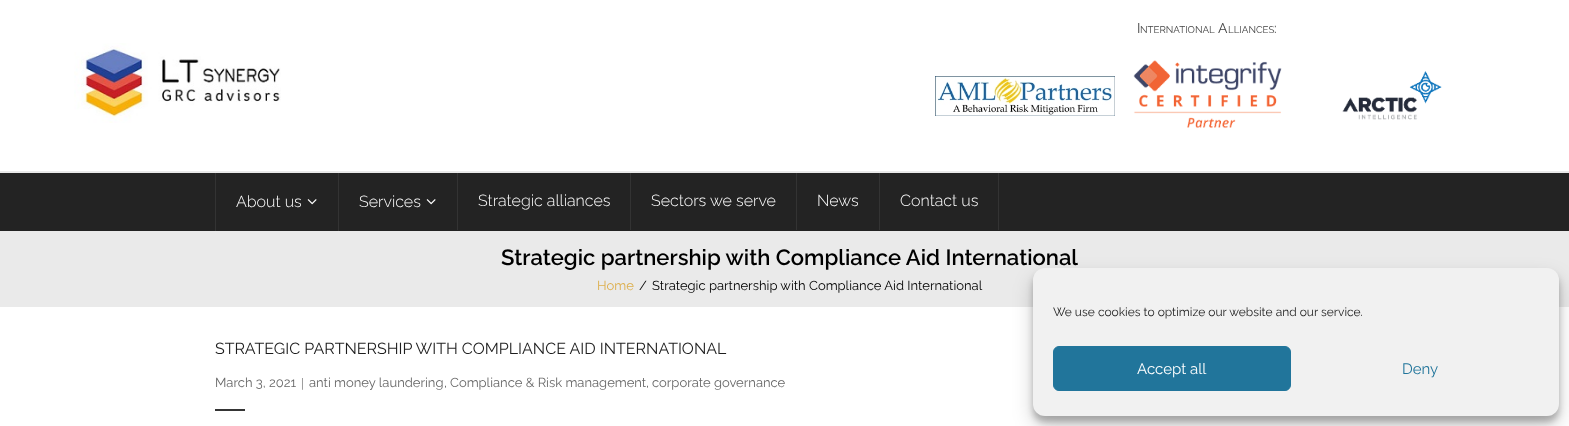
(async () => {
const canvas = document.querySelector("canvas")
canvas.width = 1569
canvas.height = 426
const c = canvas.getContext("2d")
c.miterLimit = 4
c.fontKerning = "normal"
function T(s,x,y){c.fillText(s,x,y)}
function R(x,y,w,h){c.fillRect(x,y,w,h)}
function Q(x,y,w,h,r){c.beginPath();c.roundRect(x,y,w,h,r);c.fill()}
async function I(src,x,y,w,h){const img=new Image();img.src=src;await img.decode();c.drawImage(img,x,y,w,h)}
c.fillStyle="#fff"
R(0,0,1569,426)
c.font="14px Raleway"
c.fillStyle="#444"
T("I",1137,33)
c.font="9.75px Raleway"
T("NTERNATIONAL",1140,33)
c.font="14px Raleway"
T("A",1218,33)
c.font="9.75px Raleway"
T("LLIANCES",1228,33)
c.font="14px Raleway"
T(":",1274,33)
await I("1.png",935,76,180,40)
await I("2.png",1133,60,149,69)
await I("3.png",1342,71,100,49)
await I("4.png",74,43,207,80)
c.fillStyle="#e9e9e9"
R(0,171,1569,2)
c.fillStyle="#232323"
R(0,173,1569,58)
c.fillStyle="#333"
R(215,173,1,58)
c.font="300 16px Raleway"
c.fillStyle="#fff"
T("About us",236,207)
await I("5.png",307,199,10,6)
c.fillStyle="#333"
R(338,173,1,58)
c.fillStyle="#fff"
T("Services",359,207)
await I("5.png",426,199,10,6)
c.fillStyle="#333"
R(457,173,1,57)
c.fillStyle="#fff"
T("Strategic alliances",478,206)
c.fillStyle="#333"
R(630,173,1,57)
c.fillStyle="#fff"
T("Sectors we serve",651,206)
c.fillStyle="#333"
R(796,173,1,57)
c.fillStyle="#fff"
T("News",817,206)
c.fillStyle="#333"
R(998,173,1,57)
R(879,173,1,57)
c.fillStyle="#fff"
T("Contact us",900,206)
c.fillStyle="#eaeaea"
R(0,231,1569,76)
c.font="600 22px Raleway"
c.fillStyle="#000"
T("Strategic partnership with Compliance Aid International",501,265)
c.font="13px Raleway"
c.fillStyle="#ddaf4d"
T("Home",597,290)
c.fillStyle="#000"
T("/",639,290)
T("Strategic partnership with Compliance Aid International",652,290)
c.font="16px Raleway"
c.fillStyle="#1e1e1e"
T("STRATEGIC PARTNERSHIP WITH COMPLIANCE AID INTERNATIONAL",215,354)
c.font="13px Raleway"
c.fillStyle="#686868"
T("March 3, 2021",215,387)
c.font="13px Liberation Serif"
T("|",301,387)
c.font="13px Raleway"
T("anti money laundering",309,387)
c.fillStyle="#575757"
T(",",444,387)
c.fillStyle="#686868"
T("Compliance & Risk management",450,387)
c.fillStyle="#575757"
T(",",646,387)
c.fillStyle="#686868"
T("corporate governance",652,387)
c.fillStyle="#353535"
R(215,409,30,2)
c.fillStyle="#0000003b"
c.filter="blur(3px)"
c.beginPath()
c.roundRect(1033,274,526,148,12)
c.fill()
c.filter="none"
c.fillStyle="#00000030"
c.filter="blur(10px)"
c.beginPath()
c.roundRect(1033,278,526,148,12)
c.fill()
c.filter="none"
c.fillStyle="#f1f1f1"
Q(1033,268,526,148,12)
c.font="12px Raleway"
c.fillStyle="#1e1e1e"
T("We use cookies to optimize our website and our service.",1053,316)
c.fillStyle="#21759b"
c.beginPath()
c.roundRect(1053.5,346.5,237,44,5.5)
c.fill()
c.strokeStyle="#21759b"
c.stroke()
c.font="15px Raleway"
c.fillStyle="#fff"
T("Accept all",1137,374)
c.fillStyle="#21759b"
T("Deny",1402,374)
})()
